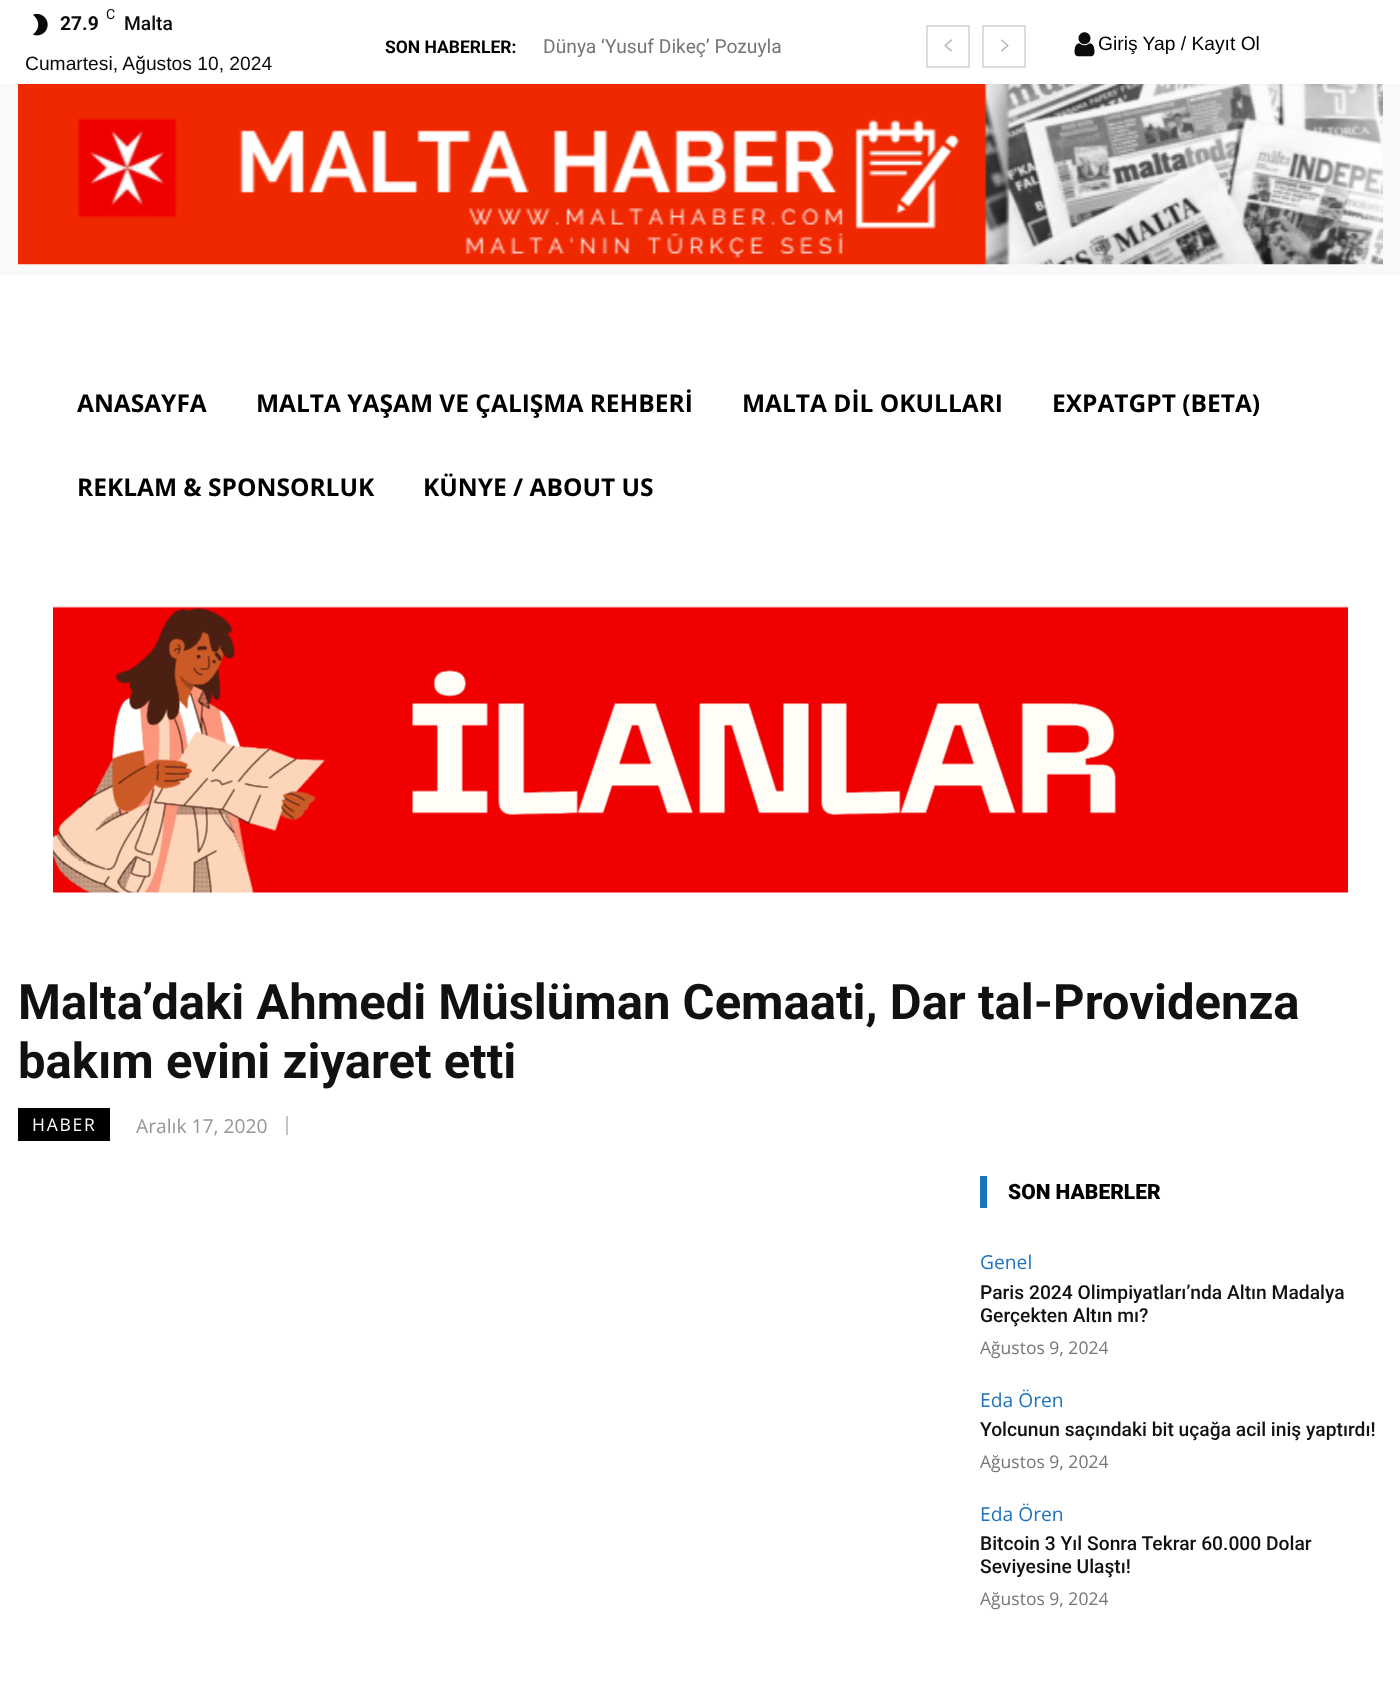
(async () => {
const canvas = document.querySelector("canvas")
canvas.width = 1400
canvas.height = 1691
const c = canvas.getContext("2d")
c.miterLimit = 4
c.fontKerning = "normal"
function T(s,x,y){c.fillText(s,x,y)}
function R(x,y,w,h){c.fillRect(x,y,w,h)}
async function I(src,x,y,w,h){const img=new Image();img.src=src;await img.decode();c.drawImage(img,x,y,w,h)}
c.fillStyle="#fff"
R(0,0,1400,1691)
await I("1.png",33,13,15,23)
c.font="14px Roboto"
c.fillStyle="#0a0a0a"
T("C",106,19)
c.font="bold 19.25px Roboto"
T("27.9",60,30)
c.font="500 19.25px Roboto"
T("Malta",124,30)
c.font="19.25px Liberation Sans"
T("Cumartesi, Ağustos 10, 2024",25,70)
c.font="bold 17.5px Roboto"
c.fillStyle="#000"
T("SON HABERLER:",385,53)
c.font="19.25px Roboto"
c.fillStyle="#767676"
T("Dünya ‘Yusuf Dikeç’ Pozuyla",543,53)
c.strokeStyle="#dcdcdc"
c.lineWidth=2
c.strokeRect(927,26,42,41)
await I("2.png",944,39,8,13)
c.strokeRect(983,26,42,41)
await I("3.png",1001,39,8,13)
await I("4.png",1074,32,21,25)
c.font="19.25px Liberation Sans"
c.fillStyle="#000"
T("Giriş Yap / Kayıt Ol",1098,50)
c.fillStyle="#f9f9f9"
R(0,84,1400,191)
await I("5.png",18,84,1365,181)
c.font="bold 24.5px Open Sans"
c.fillStyle="#000"
T("ANASAYFA",77,412)
T("MALTA YAŞAM VE ÇALIŞMA REHBERİ",256,412)
T("MALTA DİL OKULLARI",742,412)
T("EXPATGPT (BETA)",1052,412)
T("REKLAM & SPONSORLUK",77,496)
T("KÜNYE / ABOUT US",423,496)
await I("6.png",53,606,1295,287)
c.font="bold 49px Roboto"
c.fillStyle="#111"
T("Malta’daki Ahmedi Müslüman Cemaati, Dar tal-Providenza",18,1019)
T("bakım evini ziyaret etti",18,1078)
c.fillStyle="#000"
R(18,1108,92,33)
c.letterSpacing="1.75px"
c.font="17.5px Open Sans"
c.fillStyle="#fff"
T("HABER",32,1131)
c.letterSpacing="0px"
c.font="19.25px Open Sans"
c.fillStyle="#969696"
T("Aralık 17, 2020",136,1133)
c.fillStyle="#c4c4c4"
R(286,1116,2,19)
c.fillStyle="#1e73be"
R(980,1176,7,32)
c.font="900 21px Roboto"
c.fillStyle="#000"
T("SON HABERLER",1008,1199)
c.font="19.25px Open Sans"
c.fillStyle="#1e73be"
T("Genel",980,1269)
c.font="500 19.25px Roboto"
c.fillStyle="#111"
T("Paris 2024 Olimpiyatları’nda Altın Madalya",980,1299)
T("Gerçekten Altın mı?",980,1322)
c.font="17.5px Open Sans"
c.fillStyle="#767676"
T("Ağustos 9, 2024",980,1354)
c.font="19.25px Open Sans"
c.fillStyle="#1e73be"
T("Eda Ören",980,1407)
c.font="500 19.25px Roboto"
c.fillStyle="#111"
T("Yolcunun saçındaki bit uçağa acil iniş yaptırdı!",980,1436)
c.font="17.5px Open Sans"
c.fillStyle="#767676"
T("Ağustos 9, 2024",980,1468)
c.font="19.25px Open Sans"
c.fillStyle="#1e73be"
T("Eda Ören",980,1521)
c.font="500 19.25px Roboto"
c.fillStyle="#111"
T("Bitcoin 3 Yıl Sonra Tekrar 60.000 Dolar",980,1550)
T("Seviyesine Ulaştı!",980,1573)
c.font="17.5px Open Sans"
c.fillStyle="#767676"
T("Ağustos 9, 2024",980,1605)
})()
